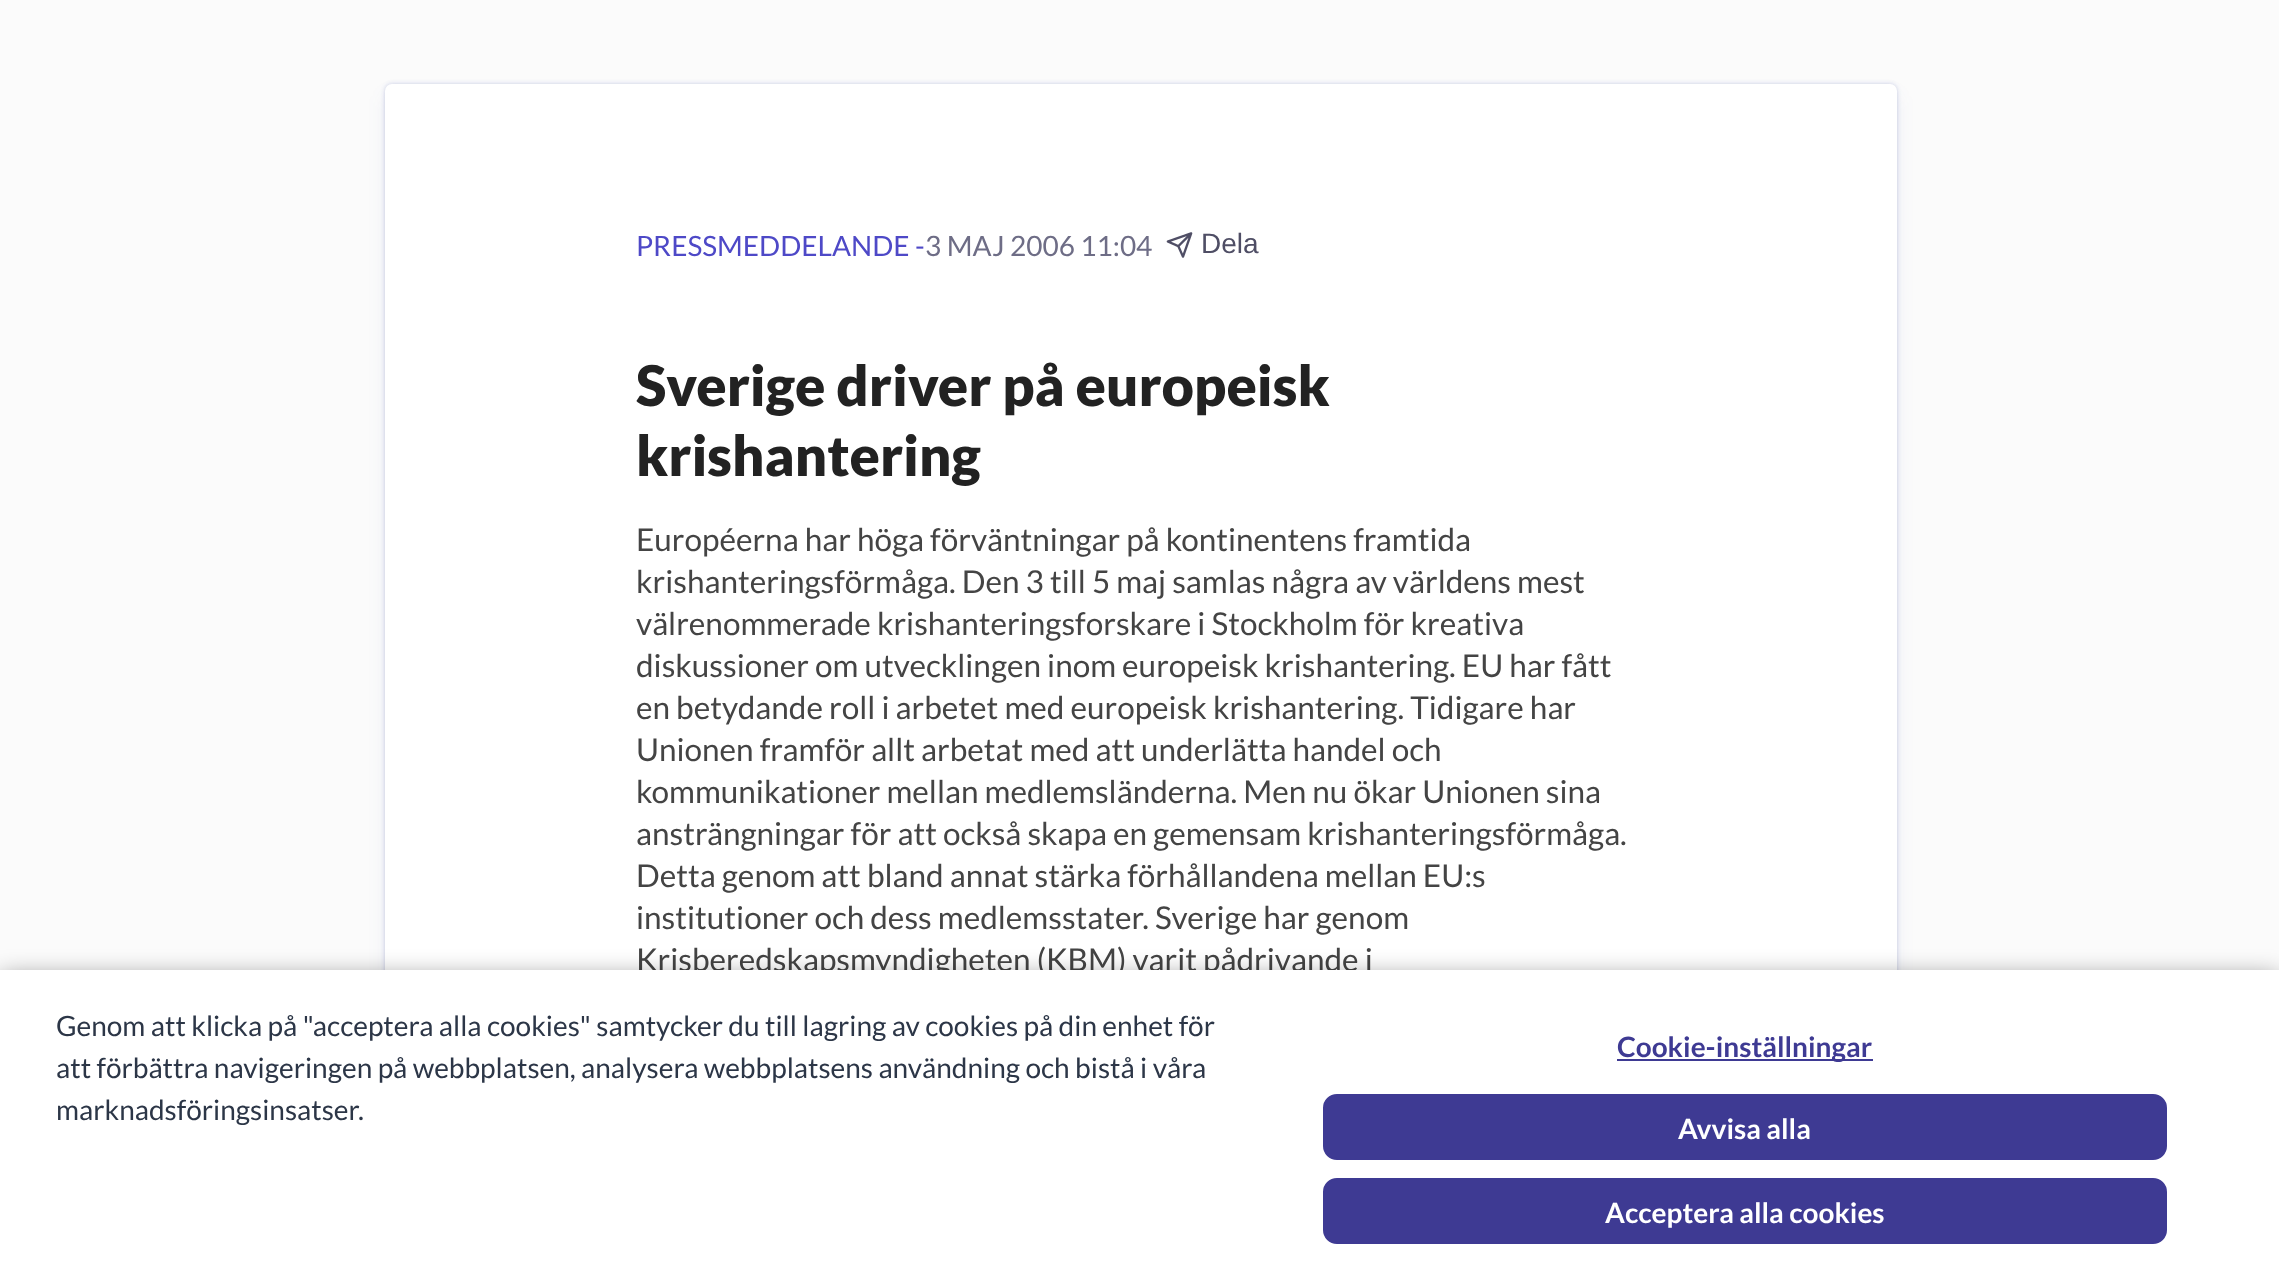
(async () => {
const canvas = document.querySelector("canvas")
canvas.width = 2279
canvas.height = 1278
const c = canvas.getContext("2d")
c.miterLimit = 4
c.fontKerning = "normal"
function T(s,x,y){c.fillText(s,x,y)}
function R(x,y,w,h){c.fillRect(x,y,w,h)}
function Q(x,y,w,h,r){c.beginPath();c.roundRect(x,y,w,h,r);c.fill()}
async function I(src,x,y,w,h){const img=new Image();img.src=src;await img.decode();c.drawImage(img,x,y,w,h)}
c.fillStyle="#fbfbfb"
R(0,0,2279,1278)
c.fillStyle="#3149a424"
c.filter="blur(2px)"
c.beginPath()
c.roundRect(385,84,1512,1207,7)
c.fill()
c.filter="none"
c.fillStyle="#3149a41a"
c.filter="blur(2.5px)"
c.beginPath()
c.roundRect(385,84,1512,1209,7)
c.fill()
c.filter="none"
c.fillStyle="#3149a414"
c.filter="blur(9px)"
c.beginPath()
c.roundRect(385,95,1512,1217,7)
c.fill()
c.filter="none"
c.fillStyle="#fff"
Q(385,84,1512,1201,7)
c.font="28px Lato"
c.fillStyle="#4e49c7"
T("PRESSMEDDELANDE -",636,256)
c.fillStyle="#6e6d86"
T("3 MAJ 2006 11:04",925,256)
await I("1.png",1166,232,27,26)
c.font="28px Liberation Sans"
c.fillStyle="#4f4e65"
T("Dela",1201,253)
c.font="900 56px Lato"
c.fillStyle="#222"
T("Sverige driver på europeisk",636,406)
T("krishantering",636,476)
c.font="31.5px Lato"
c.fillStyle="#444"
T("Européerna har höga förväntningar på kontinentens framtida",636,551)
T("krishanteringsförmåga. Den 3 till 5 maj samlas några av världens mest",636,593)
T("välrenommerade krishanteringsforskare i Stockholm för kreativa",636,635)
T("diskussioner om utvecklingen inom europeisk krishantering. EU har fått",636,677)
T("en betydande roll i arbetet med europeisk krishantering. Tidigare har",636,719)
T("Unionen framför allt arbetat med att underlätta handel och",636,761)
T("kommunikationer mellan medlemsländerna. Men nu ökar Unionen sina",636,803)
T("ansträngningar för att också skapa en gemensam krishanteringsförmåga.",636,845)
T("Detta genom att bland annat stärka förhållandena mellan EU:s",636,887)
T("institutioner och dess medlemsstater. Sverige har genom",636,929)
T("Krisberedskapsmyndigheten (KBM) varit pådrivande i",636,971)
c.fillStyle="#00000080"
c.filter="blur(13px)"
c.beginPath()
c.rect(0,978,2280,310)
c.fill()
c.filter="none"
c.fillStyle="#fff"
R(0,970,2279,308)
c.font="28px Lato"
c.fillStyle="#2c3647"
T("Genom att klicka på \"acceptera alla cookies\" samtycker du till lagring av cookies på din enhet för",56,1036)
T("att förbättra navigeringen på webbplatsen, analysera webbplatsens användning och bistå i våra",56,1078)
T("marknadsföringsinsatser.",56,1120)
c.fillStyle="#3e3a93"
R(1617,1059,256,2)
c.font="bold 28px Lato"
T("Cookie-inställningar",1617,1057)
c.beginPath()
c.roundRect(1324,1095,842,64,13)
c.fill()
c.strokeStyle="#3e3a93"
c.lineWidth=2
c.stroke()
c.fillStyle="#fff"
T("Avvisa alla",1678,1139)
c.fillStyle="#3e3a93"
c.beginPath()
c.roundRect(1324,1179,842,64,13)
c.fill()
c.stroke()
c.fillStyle="#fff"
T("Acceptera alla cookies",1605,1223)
})()
